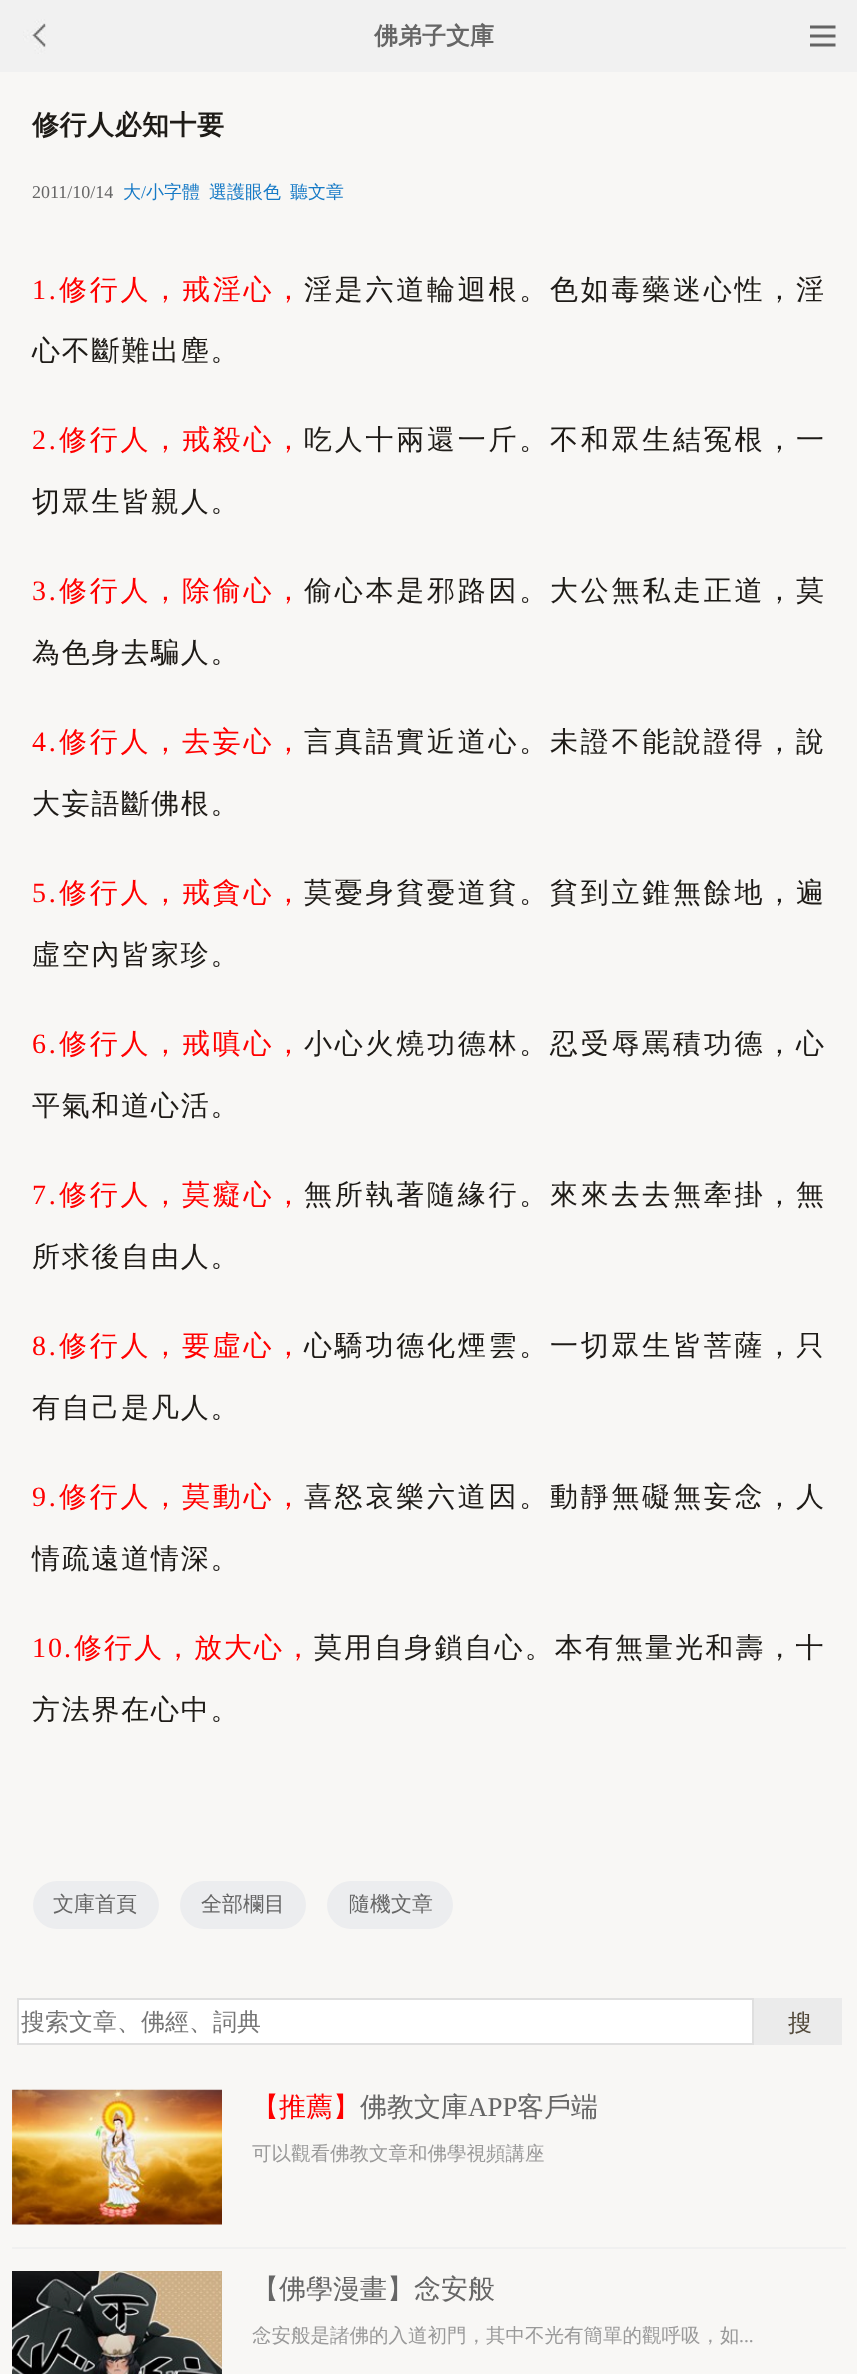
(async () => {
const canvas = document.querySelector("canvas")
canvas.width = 857
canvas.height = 2374
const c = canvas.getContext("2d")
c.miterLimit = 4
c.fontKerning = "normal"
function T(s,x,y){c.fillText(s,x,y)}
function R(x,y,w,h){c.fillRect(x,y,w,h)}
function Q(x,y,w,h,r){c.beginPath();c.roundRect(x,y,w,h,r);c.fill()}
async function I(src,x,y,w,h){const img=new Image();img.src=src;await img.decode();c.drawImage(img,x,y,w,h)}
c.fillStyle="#f8f7f5"
R(0,0,857,2374)
c.fillStyle="#f1f1f1"
R(0,0,857,72)
await I("1.png",23,19,23,35)
c.font="bold 24px WenQuanYi Zen Hei"
c.fillStyle="#666"
T("佛弟子文庫",374,44)
await I("2.png",810,25,26,22)
c.letterSpacing="0.5px"
c.font="bold 27px WenQuanYi Zen Hei"
c.fillStyle="#1e1b17"
T("修行人必知十要",32,134)
c.letterSpacing="0px"
c.font="18px Liberation Serif"
c.fillStyle="#666"
T("2011/10/14",32,198)
c.font="500 18px WenQuanYi Zen Hei"
c.fillStyle="#167ac6"
T("大",123,198)
c.font="18px Liberation Serif"
T("/",141,198)
c.font="500 18px WenQuanYi Zen Hei"
T("小字體",146,198)
T("選護眼色",209,198)
T("聽文章",290,198)
c.letterSpacing="2.75px"
c.font="28px Liberation Serif"
c.fillStyle="#f00"
T("1.",32,299)
c.font="500 28px WenQuanYi Zen Hei"
T("修行人，戒淫心，",59,299)
c.fillStyle="#1e1b17"
T("淫是六道輪迴根。色如毒藥迷心性，淫",304,299)
c.letterSpacing="1.75px"
T("心不斷難出塵。",32,360)
c.letterSpacing="2.75px"
c.font="28px Liberation Serif"
c.fillStyle="#f00"
T("2.",32,449)
c.font="500 28px WenQuanYi Zen Hei"
T("修行人，戒殺心，",59,449)
c.fillStyle="#1e1b17"
T("吃人十兩還一斤。不和眾生結冤根，一",304,449)
c.letterSpacing="1.75px"
T("切眾生皆親人。",32,511)
c.letterSpacing="2.75px"
c.font="28px Liberation Serif"
c.fillStyle="#f00"
T("3.",32,600)
c.font="500 28px WenQuanYi Zen Hei"
T("修行人，除偷心，",59,600)
c.fillStyle="#1e1b17"
T("偷心本是邪路因。大公無私走正道，莫",304,600)
c.letterSpacing="1.75px"
T("為色身去騙人。",32,662)
c.letterSpacing="2.75px"
c.font="28px Liberation Serif"
c.fillStyle="#f00"
T("4.",32,751)
c.font="500 28px WenQuanYi Zen Hei"
T("修行人，去妄心，",59,751)
c.fillStyle="#1e1b17"
T("言真語實近道心。未證不能說證得，說",304,751)
c.letterSpacing="1.75px"
T("大妄語斷佛根。",32,813)
c.letterSpacing="2.75px"
c.font="28px Liberation Serif"
c.fillStyle="#f00"
T("5.",32,902)
c.font="500 28px WenQuanYi Zen Hei"
T("修行人，戒貪心，",59,902)
c.fillStyle="#1e1b17"
T("莫憂身貧憂道貧。貧到立錐無餘地，遍",304,902)
c.letterSpacing="1.75px"
T("虛空內皆家珍。",32,964)
c.letterSpacing="2.75px"
c.font="28px Liberation Serif"
c.fillStyle="#f00"
T("6.",32,1053)
c.font="500 28px WenQuanYi Zen Hei"
T("修行人，戒嗔心，",59,1053)
c.fillStyle="#1e1b17"
T("小心火燒功德林。忍受辱罵積功德，心",304,1053)
c.letterSpacing="1.75px"
T("平氣和道心活。",32,1115)
c.letterSpacing="2.75px"
c.font="28px Liberation Serif"
c.fillStyle="#f00"
T("7.",32,1204)
c.font="500 28px WenQuanYi Zen Hei"
T("修行人，莫癡心，",59,1204)
c.fillStyle="#1e1b17"
T("無所執著隨緣行。來來去去無牽掛，無",304,1204)
c.letterSpacing="1.75px"
T("所求後自由人。",32,1266)
c.letterSpacing="2.75px"
c.font="28px Liberation Serif"
c.fillStyle="#f00"
T("8.",32,1355)
c.font="500 28px WenQuanYi Zen Hei"
T("修行人，要虛心，",59,1355)
c.fillStyle="#1e1b17"
T("心驕功德化煙雲。一切眾生皆菩薩，只",304,1355)
c.letterSpacing="1.75px"
T("有自己是凡人。",32,1417)
c.letterSpacing="2.75px"
c.font="28px Liberation Serif"
c.fillStyle="#f00"
T("9.",32,1506)
c.font="500 28px WenQuanYi Zen Hei"
T("修行人，莫動心，",59,1506)
c.fillStyle="#1e1b17"
T("喜怒哀樂六道因。動靜無礙無妄念，人",304,1506)
c.letterSpacing="1.75px"
T("情疏遠道情深。",32,1568)
c.letterSpacing="2px"
c.font="28px Liberation Serif"
c.fillStyle="#f00"
T("10.",32,1657)
c.font="500 28px WenQuanYi Zen Hei"
T("修行人，放大心，",74,1657)
c.letterSpacing="2.1px"
c.fillStyle="#1e1b17"
T("莫用自身鎖自心。本有無量光和壽，十",314,1657)
c.letterSpacing="1.75px"
T("方法界在心中。",32,1719)
c.fillStyle="#ecedef"
Q(33,1881,126,48,24)
c.letterSpacing="0px"
c.font="500 21px WenQuanYi Zen Hei"
c.fillStyle="#666"
T("文庫首頁",53,1911)
c.fillStyle="#ecedef"
Q(180,1881,126,48,24)
c.fillStyle="#666"
T("全部欄目",201,1911)
c.fillStyle="#ecedef"
Q(327,1881,126,48,24)
c.fillStyle="#666"
T("隨機文章",349,1911)
c.fillStyle="#fff"
R(19,2000,733,43)
c.strokeStyle="#dfdfdf"
c.lineWidth=2
c.strokeRect(18,1999,823,45)
c.font="500 24px WenQuanYi Zen Hei"
c.fillStyle="#757575"
T("搜索文章、佛經、詞典",21,2030)
c.fillStyle="#ebebeb"
R(754,1998,88,47)
c.fillStyle="#dfdfdf"
R(752,1998,2,47)
c.fillStyle="#514839"
T("搜",788,2031)
c.fillStyle="#f0f0f0"
R(12,2247,834,2)
await I("3.png",12,2089,210,136)
c.font="500 27px WenQuanYi Zen Hei"
c.fillStyle="#f00"
T("【推薦】",252,2116)
c.fillStyle="#666"
T("佛教文庫",360,2116)
c.font="27px Liberation Serif"
T("APP",468,2116)
c.font="500 27px WenQuanYi Zen Hei"
T("客戶端",517,2116)
c.font="500 19.5px WenQuanYi Zen Hei"
c.fillStyle="#999"
T("可以觀看佛教文章和佛學視頻講座",252,2160)
await I("4.png",12,2271,210,103)
c.font="500 27px WenQuanYi Zen Hei"
c.fillStyle="#666"
T("【佛學漫畫】念安般",252,2298)
c.font="500 19.5px WenQuanYi Zen Hei"
c.fillStyle="#999"
T("念安般是諸佛的入道初門，其中不光有簡單的觀呼吸，如",252,2342)
c.font="19.5px Liberation Serif"
T("...",739,2342)
})()
